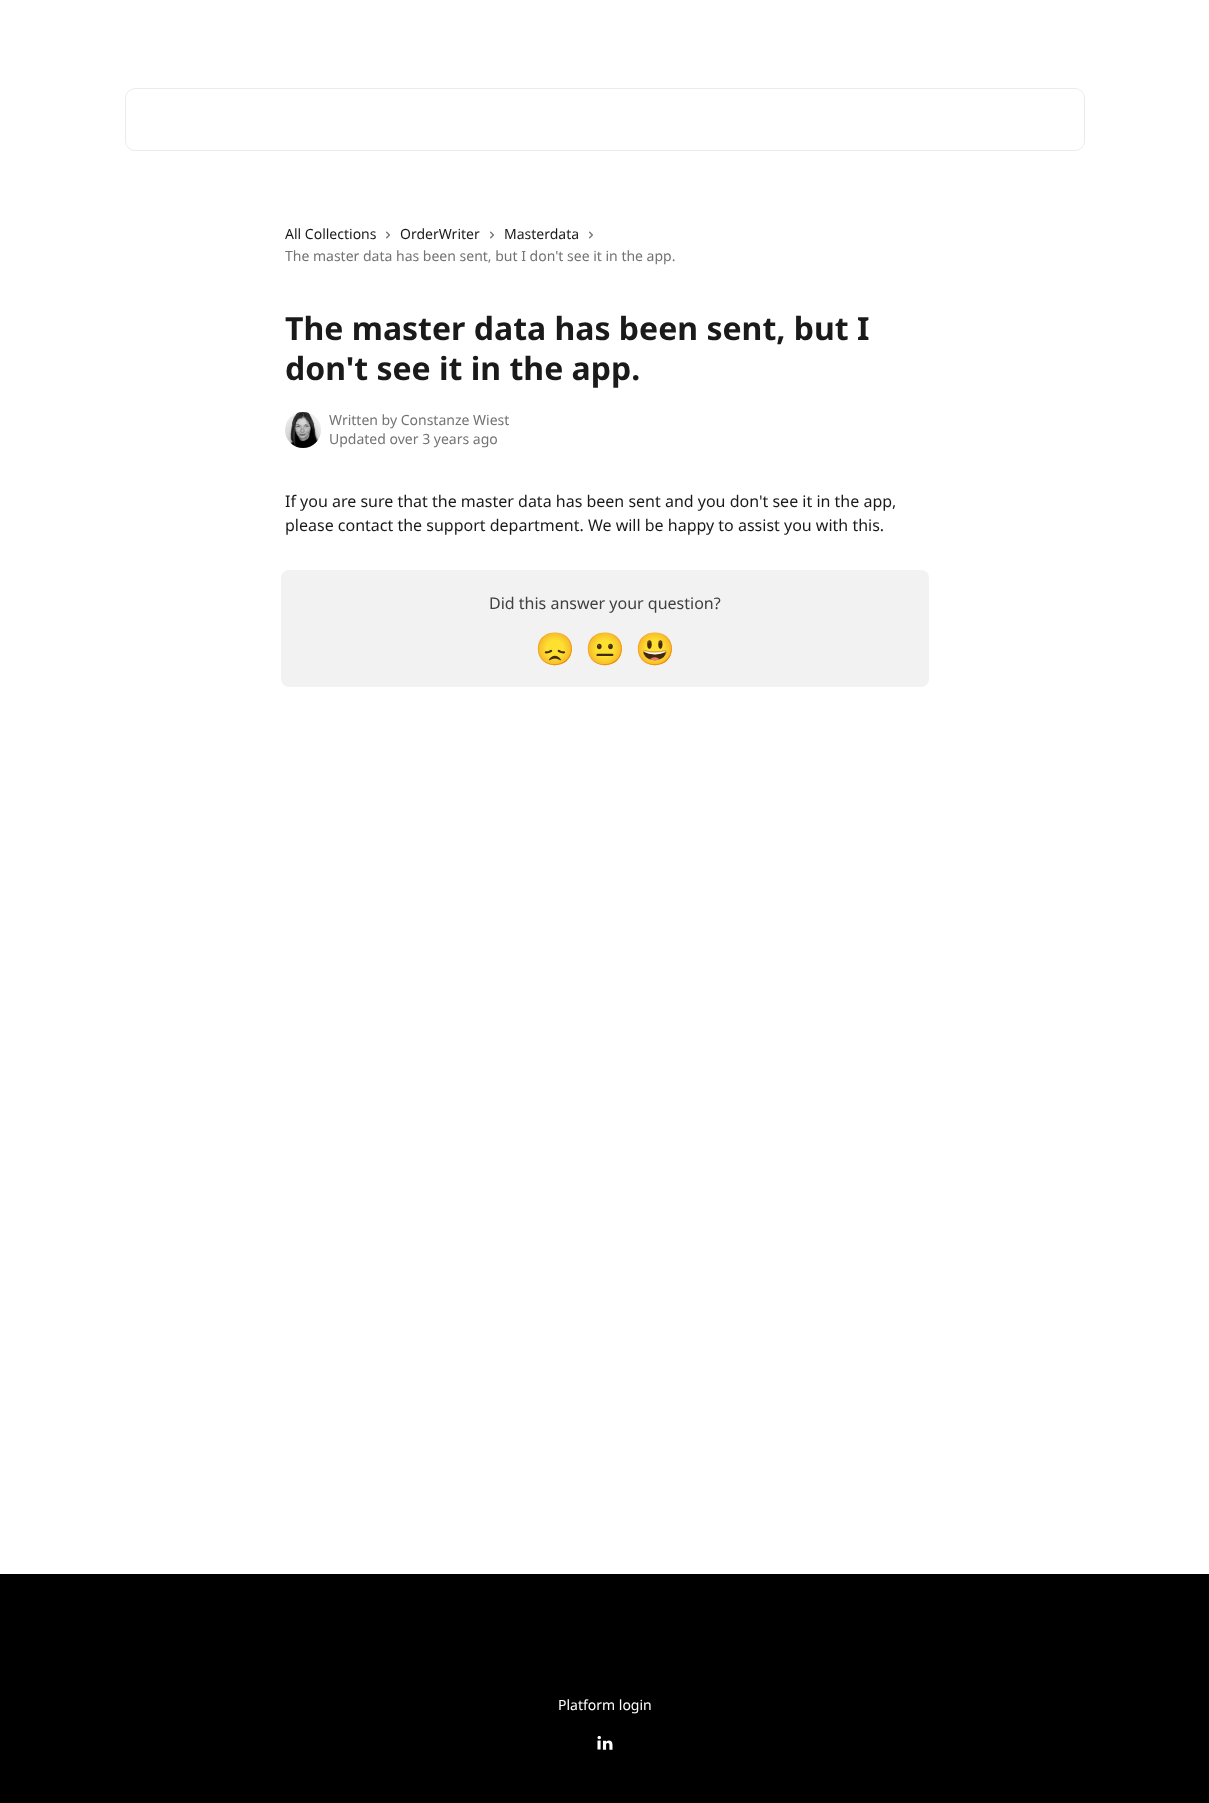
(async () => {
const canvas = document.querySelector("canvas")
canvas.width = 1209
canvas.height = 1803
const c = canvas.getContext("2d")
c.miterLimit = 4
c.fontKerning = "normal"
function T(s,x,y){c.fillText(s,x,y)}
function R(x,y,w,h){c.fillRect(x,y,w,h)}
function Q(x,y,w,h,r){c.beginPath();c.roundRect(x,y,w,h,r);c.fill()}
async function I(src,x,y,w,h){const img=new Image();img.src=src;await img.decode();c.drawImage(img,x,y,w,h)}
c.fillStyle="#fff"
R(0,0,1209,1803)
c.beginPath()
c.roundRect(125.5,88.5,959,62,9.5)
c.strokeStyle="#00000014"
c.stroke()
c.font="14px Noto Sans"
c.fillStyle="#1a1a1a"
T("All Collections",285,239)
await I("1.png",386,231,4,8)
T("OrderWriter",400,239)
await I("1.png",490,231,4,8)
T("Masterdata",504,239)
await I("1.png",589,231,4,8)
c.fillStyle="#737373"
T("The master data has been sent, but I don't see it in the app.",285,261)
c.font="bold 32px Noto Sans"
c.fillStyle="#1a1a1a"
T("The master data has been sent, but I",285,340)
T("don't see it in the app.",285,380)
await I("2.png",285,412,36,36)
c.font="14px Noto Sans"
c.fillStyle="#737373"
T("Written by Constanze Wiest",329,425)
T("Updated over 3 years ago",329,444)
c.font="16px Noto Sans"
c.fillStyle="#1a1a1a"
T("If you are sure that the master data has been sent and you don't see it in the app,",285,507)
T("please contact the support department. We will be happy to assist you with this.",285,531)
c.fillStyle="#f2f2f2"
Q(281,570,648,117,8)
c.fillStyle="#404040"
T("Did this answer your question?",489,609)
c.font="32px Noto Color Emoji"
T("😞",535,660)
T("😐",585,660)
T("😃",635,660)
c.fillStyle="#000"
R(0,1574,1209,229)
c.font="14px Noto Sans"
c.fillStyle="#fff"
T("Platform login",558,1710)
await I("3.png",597,1736,16,14)
})()
